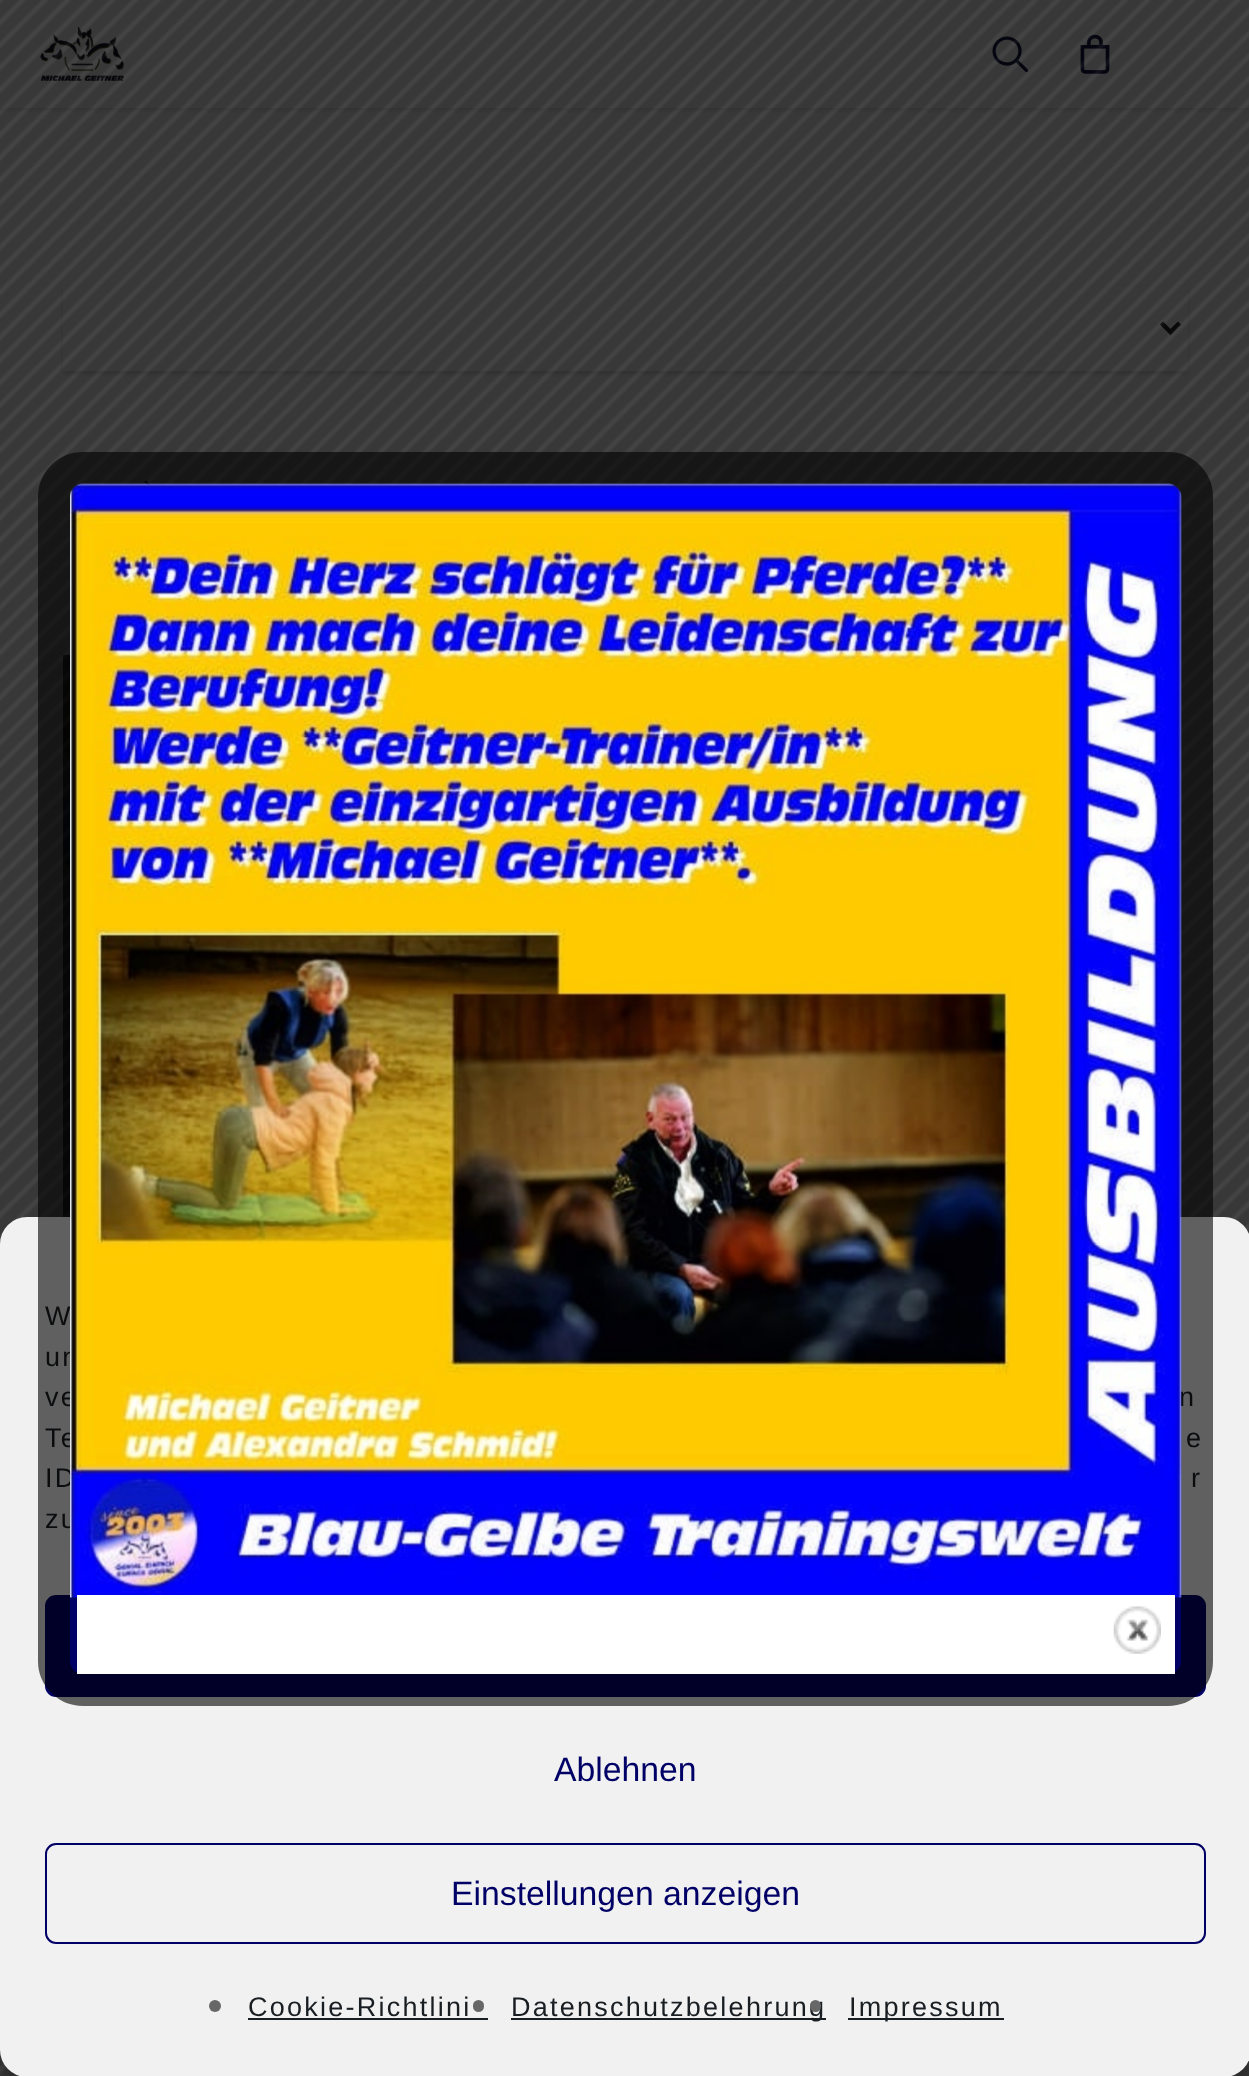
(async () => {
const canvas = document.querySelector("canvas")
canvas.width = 1249
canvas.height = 2076
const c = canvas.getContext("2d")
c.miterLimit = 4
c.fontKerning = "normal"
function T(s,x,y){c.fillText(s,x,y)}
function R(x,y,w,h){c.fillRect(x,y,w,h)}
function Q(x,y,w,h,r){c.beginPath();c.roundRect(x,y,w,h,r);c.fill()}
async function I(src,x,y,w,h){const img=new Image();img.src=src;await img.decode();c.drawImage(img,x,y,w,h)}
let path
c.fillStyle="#fff"
R(0,0,1249,2076)
c.save()
c.beginPath()
c.rect(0,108,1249,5)
c.clip()
c.fillStyle="#00000038"
c.filter="blur(3.5px)"
c.beginPath()
c.rect(0,0,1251,108)
c.fill()
c.filter="none"
c.restore()
await I("1.png",40,27,84,54)
await I("2.png",992,36,36,37)
await I("3.png",1080,34,30,40)
c.save()
path = new Path2D("M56 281h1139v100h-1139zm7 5h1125v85h-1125z")
c.clip(path,"evenodd")
c.fillStyle="#00000029"
c.filter="blur(2px)"
c.beginPath()
c.rect(63,288,1125,86)
c.fill()
c.filter="none"
c.restore()
path = new Path2D("M1161.5 323l9 9l9-9")
c.strokeStyle="#111"
c.lineWidth=4.5
c.stroke(path)
await I("5.png",144,480,7,5)
await I("6.png",63,655,7,562)
await I("4.png",0,0,1249,2076)
c.fillStyle="#0000003b"
c.filter="blur(7px)"
c.beginPath()
c.roundRect(0,1231,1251,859,27)
c.fill()
c.filter="none"
c.fillStyle="#f1f1f1"
Q(0,1217,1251,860,27)
c.letterSpacing="2.25px"
c.font="27px Liberation Sans"
c.fillStyle="#191e23"
T("W",45,1325)
T("un",45,1366)
T("ve",45,1406)
T("n",1179,1406)
T("Te",45,1447)
T("e",1186,1447)
T("ID",45,1487)
T("r",1191,1487)
T("zu",45,1528)
c.fillStyle="#006"
c.beginPath()
c.roundRect(46,1596,1159,100,10)
c.fill()
c.strokeStyle="#006"
c.lineWidth=2
c.stroke()
c.beginPath()
c.roundRect(54,468,1143,1222,29)
c.strokeStyle="#00000099"
c.lineWidth=32
c.stroke()
await I("7.png",70,483,1112,1115)
c.fillStyle="#fff"
R(77,1595,1098,79)
await I("8.png",1113,1606,48,48)
c.letterSpacing="0px"
c.font="33.75px Liberation Sans"
c.fillStyle="#006"
T("Ablehnen",554,1781)
c.beginPath()
c.roundRect(46,1844,1159,99,10)
c.strokeStyle="#006"
c.lineWidth=2
c.stroke()
T("Einstellungen anzeigen",451,1905)
c.fillStyle="#676767"
c.beginPath()
c.arc(215,2006,6,0,7)
c.fill()
c.letterSpacing="2.25px"
c.font="27px Liberation Sans"
c.fillStyle="#191e23"
T("Cookie-Richtlini",248,2016)
R(248,2018,240,2)
c.fillStyle="#676767"
Q(473,2000,11,12,5.5)
c.fillStyle="#191e23"
R(511,2018,315,2)
T("Datenschutzbelehrung",511,2016)
c.fillStyle="#676767"
Q(810,2000,11,12,5.5)
c.fillStyle="#191e23"
R(848,2018,156,2)
T("Impressum",849,2016)
})()
